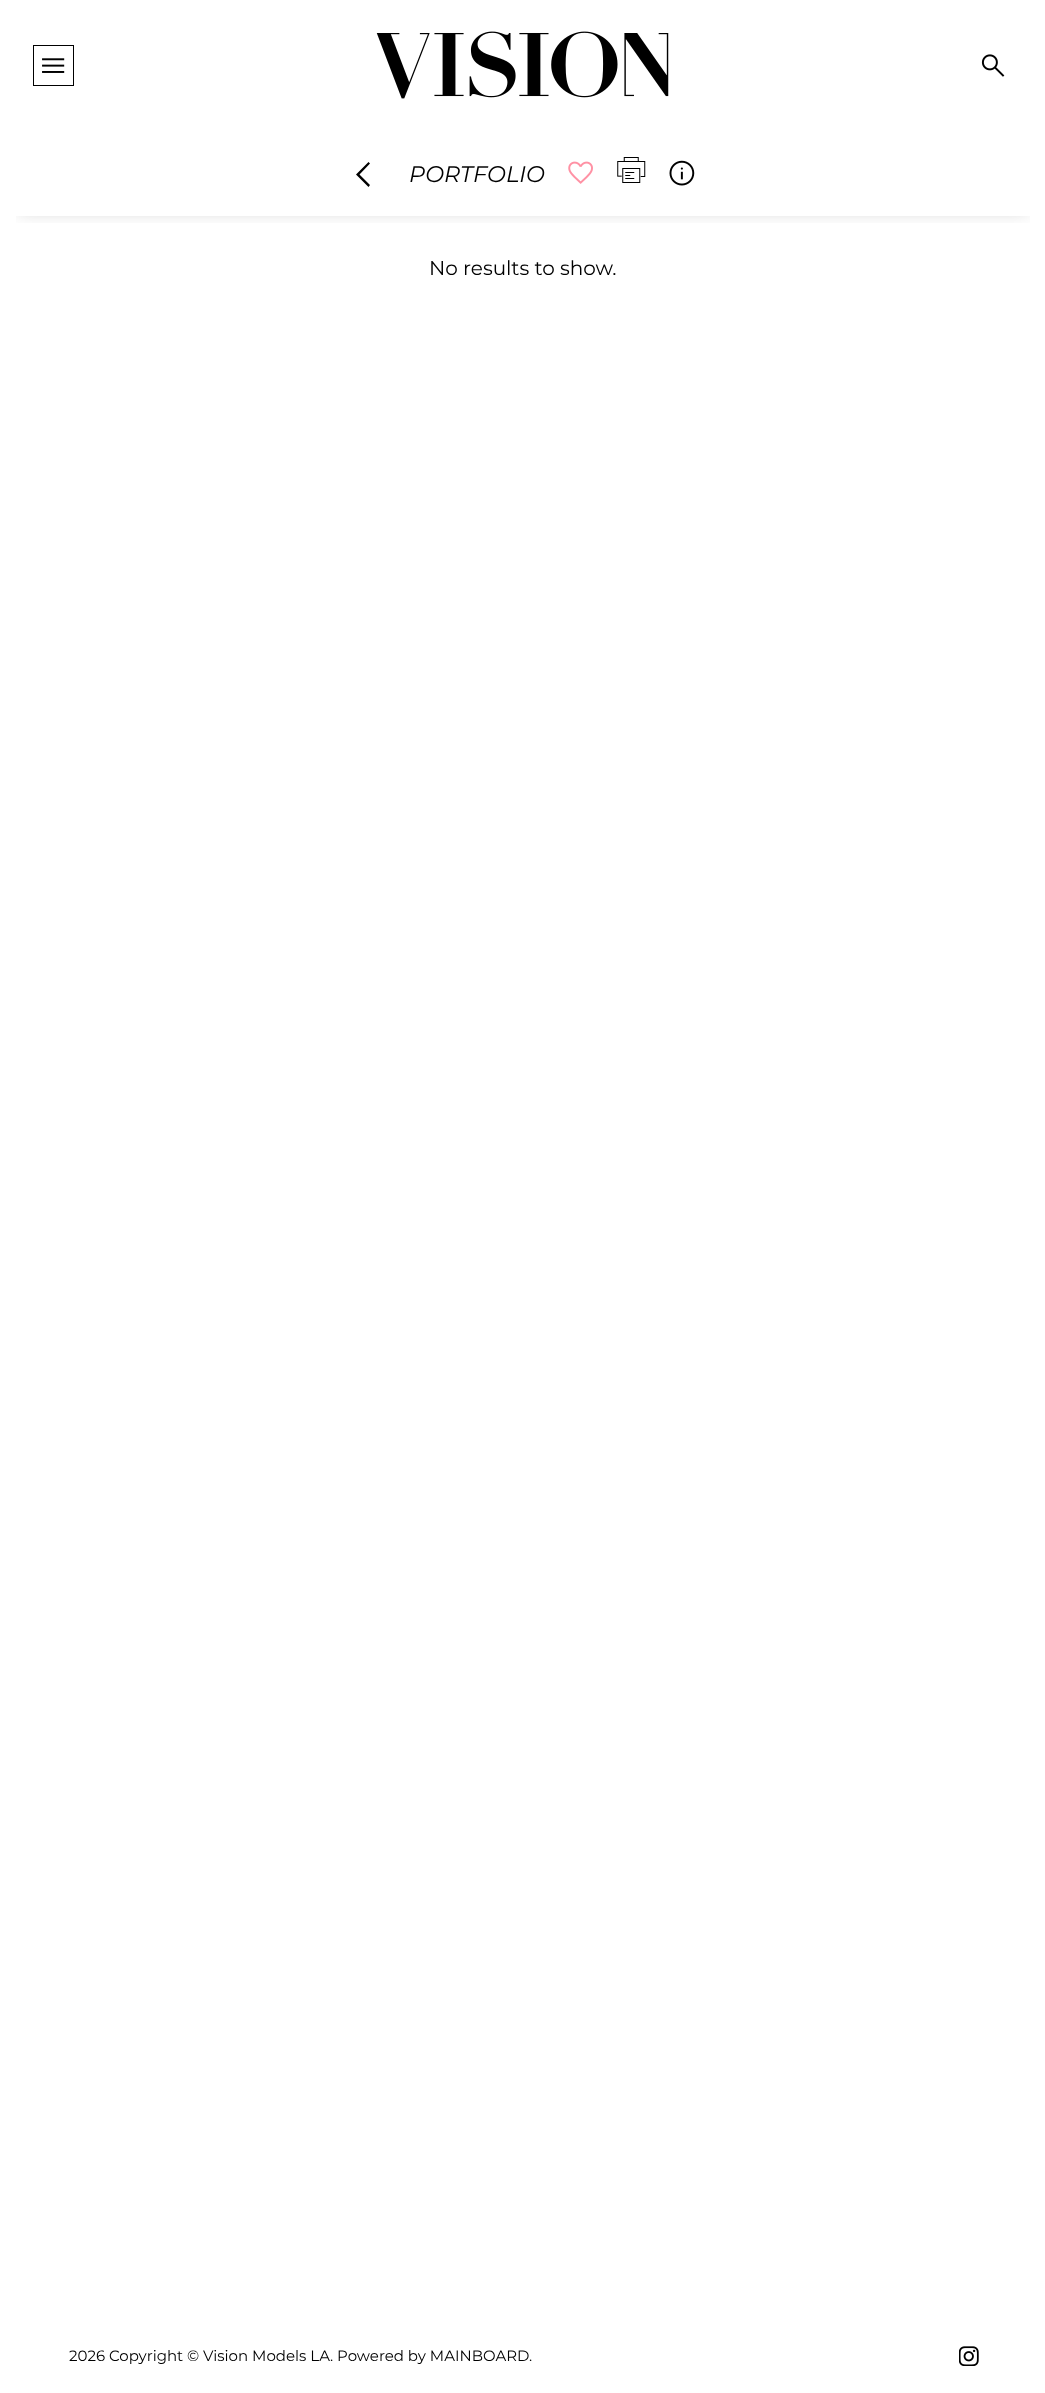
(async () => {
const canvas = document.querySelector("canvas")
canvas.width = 1045
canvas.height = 2393
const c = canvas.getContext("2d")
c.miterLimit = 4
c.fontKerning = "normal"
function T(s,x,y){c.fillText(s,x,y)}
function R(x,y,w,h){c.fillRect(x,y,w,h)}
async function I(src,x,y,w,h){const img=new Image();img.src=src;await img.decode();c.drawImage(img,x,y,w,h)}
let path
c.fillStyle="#fff"
R(0,0,1045,2393)
c.strokeStyle="#000"
c.strokeRect(33.5,45.5,40,40)
await I("1.png",42,58,23,15)
await I("2.png",376,31,293,68)
await I("3.png",981,54,24,23)
c.save()
c.beginPath()
c.rect(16,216,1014,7)
c.clip()
c.fillStyle="#00000033"
c.filter="blur(9px)"
c.beginPath()
c.rect(18,160,1010,51)
c.fill()
c.filter="none"
c.restore()
c.fillStyle="#000"
path = new Path2D("M368.5 187l-12.5-12.5l12.5-12.5l1.5 1.5l-10.5 11l10.5 10.5z")
c.fill(path)
c.font="italic 22.5px Montserrat"
T("PORTFOLIO",409,182)
await I("4.png",568,161,25,23)
await I("5.png",617,157,29,26)
await I("6.png",669,160,26,26)
c.font="20px Montserrat"
T("No results to show.",429,275)
c.font="15px Montserrat"
T("2026 Copyright ©",69,2361)
T("Vision Models LA",203,2361)
T(". Powered by MAINBOARD.",330,2361)
await I("7.png",959,2346,20,20)
})()
